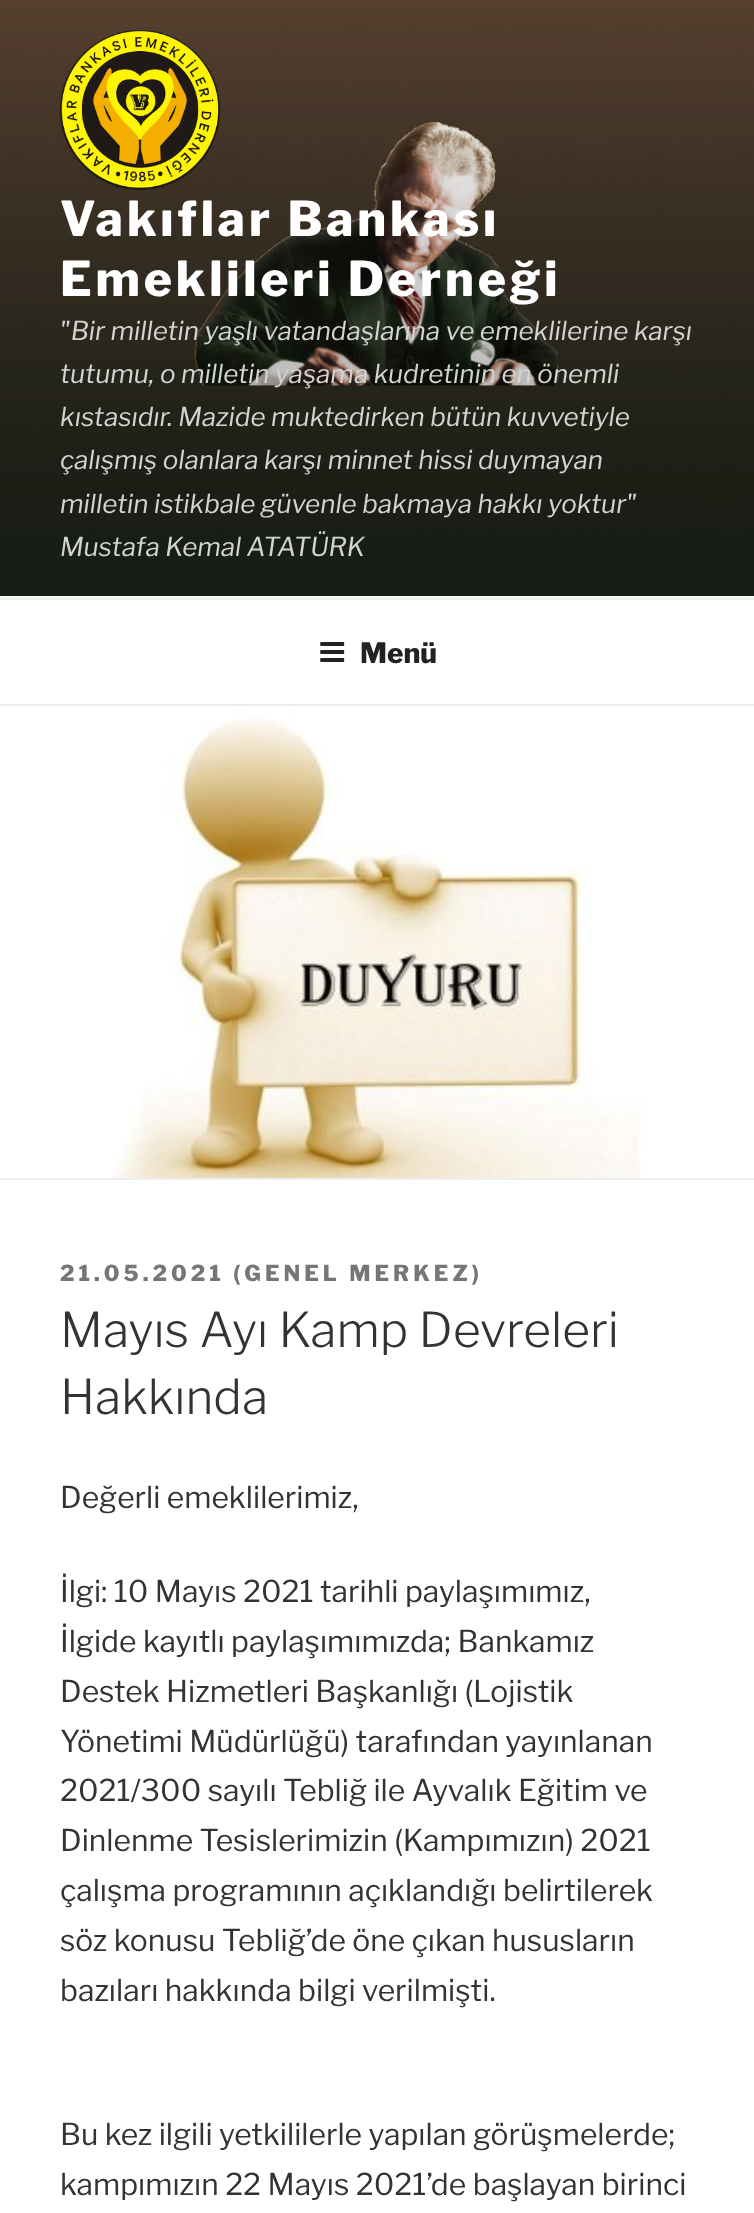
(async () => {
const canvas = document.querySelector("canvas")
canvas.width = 754
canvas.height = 2213
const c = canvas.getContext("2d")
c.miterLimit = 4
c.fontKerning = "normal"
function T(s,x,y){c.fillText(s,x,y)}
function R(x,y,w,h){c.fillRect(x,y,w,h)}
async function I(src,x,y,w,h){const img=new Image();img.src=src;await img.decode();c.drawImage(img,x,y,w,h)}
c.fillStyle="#fff"
R(0,0,754,2213)
c.fillStyle="#fafafa"
R(0,596,754,2)
await I("1.png",0,0,754,596)
await I("2.png",60,30,160,160)
c.letterSpacing="3.8px"
c.font="100 48px Libre Franklin"
c.fillStyle="#fff"
T("Vakıflar Bankası",60,236)
T("Emeklileri Derneği",60,296)
c.letterSpacing="0px"
c.font="italic 100 26px Libre Franklin"
c.fillStyle="#d3d3d1"
T("\"Bir milletin yaşlı vatandaşlarına ve emeklilerine karşı",60,340)
T("tutumu, o milletin yaşama kudretinin en önemli",60,383)
T("kıstasıdır. Mazide muktedirken bütün kuvvetiyle",60,426)
T("çalışmış olanlara karşı minnet hissi duymayan",60,469)
T("milletin istikbale güvenle bakmaya hakkı yoktur\"",60,513)
T("Mustafa Kemal ATATÜRK",60,556)
c.fillStyle="#eee"
R(0,598,754,2)
R(0,704,754,2)
await I("3.png",320,642,25,20)
c.font="100 28px Libre Franklin"
c.fillStyle="#222"
T("Menü",360,663)
c.fillStyle="#eee"
R(0,1178,754,2)
await I("4.png",0,706,754,472)
c.letterSpacing="4px"
c.font="100 22px Libre Franklin"
c.fillStyle="#767676"
T("21.05.2021 (GENEL MERKEZ)",60,1281)
c.letterSpacing="0px"
c.font="100 48px 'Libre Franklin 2'"
c.fillStyle="#333"
T("Mayıs Ayı Kamp Devreleri",60,1347)
T("Hakkında",60,1414)
c.font="100 30px 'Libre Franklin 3'"
T("Değerli emeklilerimiz,",60,1508)
T("İlgi: 10 Mayıs 2021 tarihli paylaşımımız,",60,1602)
T("İlgide kayıtlı paylaşımımızda; Bankamız",60,1652)
T("Destek Hizmetleri Başkanlığı (Lojistik",60,1702)
T("Yönetimi Müdürlüğü) tarafından yayınlanan",60,1752)
T("2021/300 sayılı Tebliğ ile Ayvalık Eğitim ve",60,1801)
T("Dinlenme Tesislerimizin (Kampımızın) 2021",60,1851)
T("çalışma programının açıklandığı belirtilerek",60,1901)
T("söz konusu Tebliğ’de öne çıkan hususların",60,1951)
T("bazıları hakkında bilgi verilmişti.",60,2001)
T("Bu kez ilgili yetkililerle yapılan görüşmelerde;",60,2145)
T("kampımızın 22 Mayıs 2021’de başlayan birinci",60,2195)
})()
